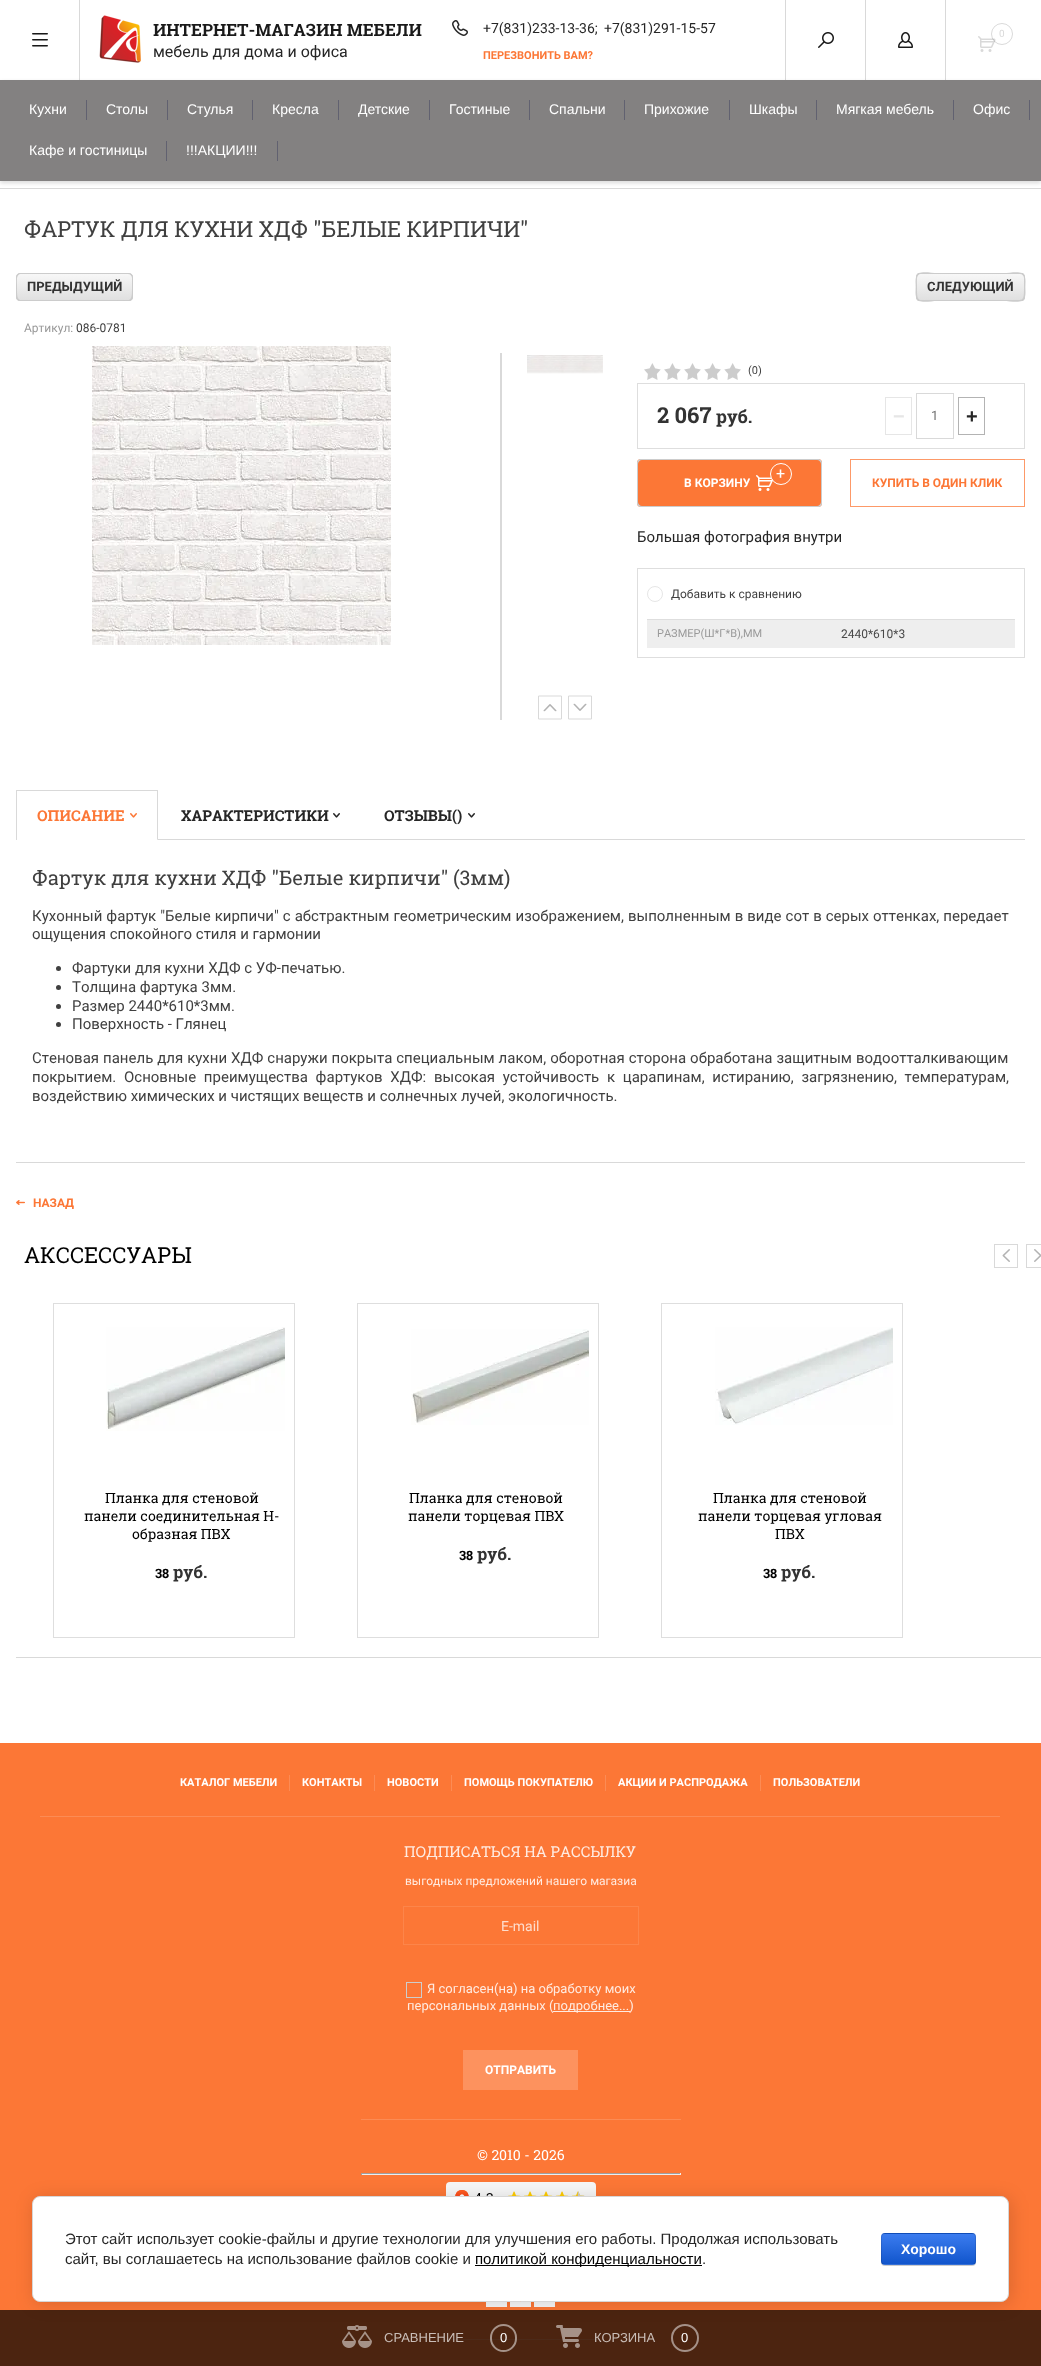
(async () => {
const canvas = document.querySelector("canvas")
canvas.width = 1041
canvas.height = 2366
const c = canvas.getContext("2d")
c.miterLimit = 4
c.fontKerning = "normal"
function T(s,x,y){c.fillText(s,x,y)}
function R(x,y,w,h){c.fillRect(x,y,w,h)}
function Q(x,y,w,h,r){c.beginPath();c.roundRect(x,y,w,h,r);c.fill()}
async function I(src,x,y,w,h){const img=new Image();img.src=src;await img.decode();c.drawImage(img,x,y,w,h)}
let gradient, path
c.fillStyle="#fff"
R(0,0,1041,2366)
await I("1.png",32,33,16,14)
c.fillStyle="#d9d9d9"
R(79,0,1,80)
await I("2.png",99,15,42,48)
c.font="bold 17px Roboto Slab"
c.fillStyle="#1a1a1a"
T("ИНТЕРНЕТ-МАГАЗИН МЕБЕЛИ",153,36)
c.font="16px Roboto"
c.fillStyle="#262626"
T("мебель для дома и офиса",153,57)
await I("3.png",452,20,16,16)
c.font="14px Roboto"
T("+7(831)233-13-36;",483,33)
T("+7(831)291-15-57",604,33)
c.font="bold 11px Roboto"
c.fillStyle="#fc7736"
T("ПЕРЕЗВОНИТЬ ВАМ?",483,59)
c.fillStyle="#d9d9d9"
R(785,0,1,80)
await I("4.png",818,32,16,16)
await I("5.png",898,32,15,16)
R(865,0,1,80)
R(945,0,1,80)
await I("6.png",978,36,18,16)
c.beginPath()
c.arc(1002,34,10.5,0,7)
c.strokeStyle="#00000026"
c.stroke()
c.font="10px Roboto"
T("0",999,37)
R(0,188,1041,1)
c.fillStyle="#00000026"
c.filter="blur(2px)"
c.beginPath()
c.rect(0,82,1041,101)
c.fill()
c.filter="none"
c.fillStyle="#838181"
R(0,80,1041,101)
c.fillStyle="#616170"
R(86,100,1,20)
c.font="14px Liberation Sans"
c.fillStyle="#fff"
T("Кухни",29,114)
c.fillStyle="#616170"
R(167,100,1,20)
c.fillStyle="#fff"
T("Столы",106,114)
c.fillStyle="#616170"
R(252,100,1,20)
c.fillStyle="#fff"
T("Стулья",187,114)
c.fillStyle="#616170"
R(338,100,1,20)
c.fillStyle="#fff"
T("Кресла",272,114)
c.fillStyle="#616170"
R(429,100,1,20)
c.fillStyle="#fff"
T("Детские",358,114)
c.fillStyle="#616170"
R(529,100,1,20)
c.fillStyle="#fff"
T("Гостиные",449,114)
c.fillStyle="#616170"
R(624,100,1,20)
c.fillStyle="#fff"
T("Спальни",549,114)
c.fillStyle="#616170"
R(729,100,1,20)
c.fillStyle="#fff"
T("Прихожие",644,114)
c.fillStyle="#616170"
R(816,100,1,20)
c.fillStyle="#fff"
T("Шкафы",749,114)
c.fillStyle="#616170"
R(953,100,1,20)
c.fillStyle="#fff"
T("Мягкая мебель",836,114)
c.fillStyle="#616170"
R(1029,100,1,20)
c.fillStyle="#fff"
T("Офис",973,114)
c.fillStyle="#616170"
R(166,141,1,20)
c.fillStyle="#fff"
T("Кафе и гостиницы",29,155)
c.fillStyle="#616170"
R(277,141,1,20)
c.fillStyle="#fff"
T("!!!АКЦИИ!!!",186,155)
c.font="22px Roboto Slab"
c.fillStyle="#404040"
T("ФАРТУК ДЛЯ КУХНИ ХДФ \"БЕЛЫЕ КИРПИЧИ\"",24,237)
gradient = c.createLinearGradient(75,273,75,301)
gradient.addColorStop(0,"#f8f8f8")
gradient.addColorStop(1,"#dfdfdf")
c.fillStyle = gradient
Q(16,273,117,28,4)
c.fillStyle="#ccc"
path = new Path2D("M18 274c-1 0-2 2-2 3v20c0 2 2 4 4 4h109c1 0 3-1 3-2l-1 1h-92c-22 0-22 4-22-14c0-3-1-10 1-12z")
c.fill(path)
path = new Path2D("M19 274h109c2 0 4 2 4 4v20l-1 2c1 0 2-2 2-3v-20c0-2-2-4-4-4h-109c-1 0-3 1-3 2z")
c.fill(path)
path = new Path2D("M17 299c0 1 2 2 3 2h109c2 0 4-2 4-4v-20c0-1-1-3-2-3c2 2 1 9 1 12c0 18 0 14-22 14h-92z")
c.fill(path)
path = new Path2D("M21 274h109l2 1c0-1-2-2-3-2h-109c-2 0-4 2-4 4v20c0 1 1 3 2 3c-2-2-1-9-1-12c0-3-2-14 4-14z")
c.fill(path)
c.font="bold 13px Roboto"
c.fillStyle="#333"
T("ПРЕДЫДУЩИЙ",27,291)
gradient = c.createLinearGradient(971,273,971,301)
gradient.addColorStop(0,"#f8f8f8")
gradient.addColorStop(1,"#dfdfdf")
c.fillStyle = gradient
Q(916,273,109,28,4)
c.fillStyle="#ccc"
path = new Path2D("M918 274c-4 2-2 13-2 16v8c1 6 15 3 21 3h86l1-2l-2 1h-84c-21 0-21 4-21-14c0-3-1-10 1-12z")
c.fill(path)
path = new Path2D("M919 274h101c2 0 4 2 4 4v20l-1 2c4-2 2-13 2-16v-8c-1-6-15-3-21-3h-86l-1 2z")
c.fill(path)
path = new Path2D("M917 299l1 2h86c6 0 20 3 21-3v-8c0-3 2-14-2-16c2 2 1 9 1 12c0 18 0 14-21 14h-84z")
c.fill(path)
path = new Path2D("M921 274h101l2 1l-1-2h-86c-6 0-20-3-21 3v8c0 3-2 14 2 16c-2-2-1-9-1-12c0-3-2-14 4-14z")
c.fill(path)
c.fillStyle="#333"
T("СЛЕДУЮЩИЙ",927,291)
c.font="12px Roboto"
c.fillStyle="#999"
T("Артикул:",24,332)
c.fillStyle="#404040"
T("086-0781",76,332)
await I("7.png",92,346,299,299)
c.fillStyle="#d9d9d9"
R(500,353,2,367)
await I("8.png",527,355,76,19)
await I("9.png",543,704,14,8)
path = new Path2D("M538.5 719v-23h23v23z")
c.strokeStyle="#d9d9d9"
c.stroke(path)
await I("10.png",573,703,14,8)
path = new Path2D("M591.5 696v23h-23v-23z")
c.stroke(path)
await I("11.png",644,363,97,17)
c.font="11px Roboto"
c.fillStyle="#404040"
T("(0)",748,374)
c.strokeStyle="#dedede"
c.strokeRect(637.5,383.5,387,65)
c.font="bold 22px Roboto Slab"
c.fillStyle="#333"
T("2 067",657,423)
c.font="bold 18px Roboto Slab"
T("руб.",716,423)
c.strokeStyle="#e6e6e6"
c.strokeRect(885.5,397.5,26,37)
c.font="bold 20px Liberation Sans"
c.fillStyle="#e6e6e6"
T("−",893,423)
c.strokeStyle="#d9d9d9"
c.strokeRect(916.5,393.5,37,45)
c.font="13px Roboto"
c.fillStyle="#737373"
T("1",931,420)
c.strokeStyle="#b3b3b3"
c.strokeRect(958.5,397.5,26,37)
c.font="bold 20px Liberation Sans"
c.fillStyle="#262626"
T("+",966,423)
c.fillStyle="#fc7736"
Q(637,459,185,48,4)
c.fillStyle="#ccc"
path = new Path2D("M639 460c-1 0-2 2-2 3v40c0 2 2 4 4 4h177c1 0 3-1 3-2l-2 1h-177c-2 0-4-2-4-4v-40z")
c.fill(path)
path = new Path2D("M640 460h177c2 0 4 2 4 4v40l-1 2c1 0 2-2 2-3v-40c0-2-2-4-4-4h-177c-1 0-3 1-3 2z")
c.fill(path)
path = new Path2D("M638 505c0 1 2 2 3 2h177c2 0 4-2 4-4v-40c0-1-1-3-2-3l1 2v40c0 2-2 4-4 4h-177z")
c.fill(path)
path = new Path2D("M642 460h177l2 1c0-1-2-2-3-2h-177c-2 0-4 2-4 4v40c0 1 1 3 2 3l-1-2v-40c0-2 2-4 4-4z")
c.fill(path)
await I("12.png",756,475,17,16)
c.fillStyle="#fc7736"
c.beginPath()
c.arc(781,474,10.5,0,7)
c.fill()
c.strokeStyle="#fff"
c.stroke()
c.font="16px Roboto"
c.fillStyle="#fff"
T("+",776,479)
c.font="bold 12px Roboto"
T("В КОРЗИНУ",684,487)
c.strokeStyle="#fd9968"
c.strokeRect(850.5,459.5,174,47)
c.fillStyle="#fc7736"
T("КУПИТЬ В ОДИН КЛИК",872,487)
c.font="15px Roboto"
c.fillStyle="#262626"
T("Большая фотография внутри",637,542)
c.strokeStyle="#dedede"
c.strokeRect(637.5,568.5,387,89)
c.fillStyle="#dedede"
R(647,619,368,1)
c.beginPath()
c.arc(655,594,7.5,0,7)
c.strokeStyle="#e6e6e6"
c.stroke()
c.font="12px Roboto"
c.fillStyle="#404040"
T("Добавить к сравнению",671,598)
c.fillStyle="#eee"
R(647,620,368,28)
c.font="11px Roboto"
c.fillStyle="#999"
T("РАЗМЕР(Ш*Г*В),ММ",657,637)
c.font="12px Roboto"
c.fillStyle="#494949"
T("2440*610*3",841,638)
c.fillStyle="#d9d9d9"
R(16,1162,1009,1)
path = new Path2D("M16 790h142l-1 1h-140z")
c.fill(path)
R(16,839,1009,1)
c.fillStyle="#00000026"
path = new Path2D("M158 790v50l-1-1v-48z")
c.fill(path)
c.fillStyle="#fff"
path = new Path2D("M158 840h-142l1-1h140z")
c.fill(path)
c.fillStyle="#00000026"
path = new Path2D("M16 840v-50l1 1v48z")
c.fill(path)
c.font="bold 15px Roboto Slab"
c.fillStyle="#fc7736"
T("ОПИСАНИЕ",37,821)
await I("13.png",130,813,7,5)
c.fillStyle="#262626"
T("ХАРАКТЕРИСТИКИ",181,821)
await I("14.png",333,813,7,5)
T("ОТЗЫВЫ()",384,821)
await I("14.png",468,813,7,5)
c.font="20px Roboto Slab"
c.fillStyle="#404040"
T("Фартук для кухни ХДФ \"Белые кирпичи\" (3мм)",32,885)
c.wordSpacing="0.3px"
c.font="15px Roboto"
T("Кухонный фартук \"Белые кирпичи\" с абстрактным геометрическим изображением, выполненным в виде сот в серых оттенках, передает",32,921)
c.wordSpacing="0px"
T("ощущения спокойного стиля и гармонии",32,939)
c.beginPath()
c.arc(58.5,968.5,2.5,0,7)
c.fill()
T("Фартуки для кухни ХДФ с УФ-печатью.",72,973)
c.beginPath()
c.arc(58.5,987.5,2.5,0,7)
c.fill()
T("Толщина фартука 3мм.",72,992)
c.beginPath()
c.arc(58.5,1006.5,2.5,0,7)
c.fill()
T("Размер 2440*610*3мм.",72,1011)
c.beginPath()
c.arc(58.5,1024.5,2.5,0,7)
c.fill()
T("Поверхность - Глянец",72,1029)
c.wordSpacing="0.25px"
T("Стеновая панель для кухни ХДФ снаружи покрыта специальным лаком, оборотная сторона обработана защитным водоотталкивающим",32,1063)
c.wordSpacing="4px"
T("покрытием. Основные преимущества фартуков ХДФ: высокая устойчивость к царапинам, истиранию, загрязнению, температурам,",32,1082)
c.wordSpacing="0px"
T("воздействию химических и чистящих веществ и солнечных лучей, экологичность.",32,1101)
await I("15.png",16,1200,9,5)
c.font="bold 12px Roboto"
c.fillStyle="#fc7736"
T("НАЗАД",33,1207)
c.font="22px Roboto Slab"
c.fillStyle="#000"
T("АКССЕССУАРЫ",24,1263)
c.fillStyle="#d9d9d9"
R(16,1657,1025,1)
await I("16.png",1002,1249,8,13)
c.strokeStyle="#d9d9d9"
c.strokeRect(994.5,1244.5,23,23)
await I("17.png",1034,1249,7,13)
c.strokeRect(1026.5,1244.5,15,23)
c.strokeStyle="#dedede"
c.strokeRect(53.5,1303.5,241,334)
await I("18.png",106,1327,179,104)
c.font="14px Roboto Slab"
c.fillStyle="#000"
T("Планка для стеновой",105,1503)
T("панели соединительная Н-",84,1521)
T("образная ПВХ",132,1539)
c.font="bold 13px Roboto Slab"
T("38",155,1578)
c.font="bold 17px Roboto Slab"
c.fillStyle="#333"
T("руб.",173,1578)
c.strokeRect(357.5,1303.5,241,334)
await I("19.png",411,1329,178,96)
c.font="14px Roboto Slab"
c.fillStyle="#000"
T("Планка для стеновой",409,1503)
T("панели торцевая ПВХ",408,1521)
c.font="bold 13px Roboto Slab"
T("38",459,1560)
c.font="bold 17px Roboto Slab"
c.fillStyle="#333"
T("руб.",477,1560)
c.strokeRect(661.5,1303.5,241,334)
await I("20.png",715,1327,178,98)
c.font="14px Roboto Slab"
c.fillStyle="#000"
T("Планка для стеновой",713,1503)
T("панели торцевая угловая",698,1521)
T("ПВХ",775,1539)
c.font="bold 13px Roboto Slab"
T("38",763,1578)
c.font="bold 17px Roboto Slab"
c.fillStyle="#333"
T("руб.",781,1578)
c.fillStyle="#4c2410"
R(0,2310,1041,56)
await I("21.png",342,2325,30,23)
c.fillStyle="#4c2a19"
R(441,2339,160,1)
c.font="13px Liberation Sans"
c.fillStyle="#c9bdb7"
T("СРАВНЕНИЕ",384,2342)
c.beginPath()
c.roundRect(491,2325,25,26,12.5)
c.strokeStyle="#ffffff80"
c.lineWidth=2
c.stroke()
c.fillStyle="#fff"
T("0",500,2342)
await I("22.png",556,2325,26,23)
c.fillStyle="#c9bdb7"
T("КОРЗИНА",594,2342)
c.beginPath()
c.arc(685,2338,13,0,7)
c.strokeStyle="#a59188"
c.stroke()
c.fillStyle="#fff"
T("0",681,2342)
c.fillStyle="#fc7736"
R(0,1743,1041,567)
c.fillStyle="#fc8b54"
R(40,1816,960,1)
c.font="bold 11px Roboto"
c.fillStyle="#fff"
T("КАТАЛОГ МЕБЕЛИ",180,1786)
c.fillStyle="#fc8b54"
R(289,1775,1,16)
c.fillStyle="#fff"
T("КОНТАКТЫ",302,1786)
c.fillStyle="#fc8b54"
R(374,1775,1,16)
c.fillStyle="#fff"
T("НОВОСТИ",387,1786)
c.fillStyle="#fc8b54"
R(451,1775,1,16)
c.fillStyle="#fff"
T("ПОМОЩЬ ПОКУПАТЕЛЮ",464,1786)
c.fillStyle="#fc8b54"
R(605,1775,1,16)
c.fillStyle="#fff"
T("АКЦИИ И РАСПРОДАЖА",618,1786)
c.fillStyle="#fc8b54"
R(760,1775,1,16)
c.fillStyle="#fff"
T("ПОЛЬЗОВАТЕЛИ",773,1786)
c.font="15px Roboto Slab"
c.fillStyle="#ffebe1"
T("ПОДПИСАТЬСЯ НА РАССЫЛКУ",404,1857)
c.font="12px Roboto"
T("выгодных предложений нашего магазиа",405,1885)
c.strokeStyle="#fc854a"
c.lineWidth=1
c.strokeRect(403.5,1906.5,235,38)
c.font="14px Roboto"
c.fillStyle="#feddcd"
T("E-mail",501,1931)
c.strokeStyle="#cdcdcd"
c.strokeRect(406.5,1982.5,15,15)
c.font="13px Roboto"
c.fillStyle="#ffebe1"
T("Я согласен(на) на обработку моих",427,1993)
T("персональных данных (",407,2010)
R(553,2011,77,1)
T("подробнее...)",553,2010)
c.fillStyle="#fd925e"
R(463,2050,115,40)
c.font="bold 12px Roboto"
c.fillStyle="#fff"
T("ОТПРАВИТЬ",485,2074)
c.fillStyle="#fc8b54"
R(361,2119,320,1)
c.font="14px Roboto Slab"
c.fillStyle="#fff"
T("© 2010 - 2026",477,2160)
c.fillStyle="#9f9f9f"
R(361,2173,320,1)
c.fillStyle="#eee"
R(680,2173,1,2)
R(361,2174,320,1)
c.fillStyle="#9f9f9f"
R(361,2173,1,2)
await I("23.png",446,2182,150,14)
await I("24.png",486,2302,21,5)
await I("24.png",510,2302,21,5)
await I("24.png",534,2302,21,5)
c.fillStyle="#00000024"
c.filter="blur(9px)"
c.beginPath()
c.roundRect(34,2198,977,106,8)
c.fill()
c.filter="none"
c.fillStyle="#fff"
c.beginPath()
c.roundRect(32.5,2196.5,976,105,7.5)
c.fill()
c.strokeStyle="#d6d6d6"
c.stroke()
c.font="15px Liberation Sans"
c.fillStyle="#262626"
T("Этот сайт использует cookie-файлы и другие технологии для улучшения его работы. Продолжая использовать",65,2244)
T("сайт, вы соглашаетесь на использование файлов cookie и",65,2264)
c.fillStyle="#000"
R(475,2265,227,1)
T("политикой конфиденциальности",475,2264)
c.fillStyle="#262626"
T(".",702,2264)
c.fillStyle="#00000033"
c.filter="blur(0.5px)"
c.beginPath()
c.roundRect(881,2234,95,32,4)
c.fill()
c.filter="none"
c.save()
c.beginPath()
c.roundRect(881,2233,95,32,4)
c.clip()
gradient = c.createLinearGradient(929,2204,929,2234)
gradient.addColorStop(0,"#3b7cef")
gradient.addColorStop(1,"#15c")
c.fillStyle = gradient
R(881,2233,95,1)
gradient = c.createLinearGradient(929,2234,929,2264)
gradient.addColorStop(0,"#3b7cef")
gradient.addColorStop(1,"#15c")
c.fillStyle = gradient
R(881,2234,95,30)
gradient = c.createLinearGradient(929,2264,929,2294)
gradient.addColorStop(0,"#3b7cef")
gradient.addColorStop(1,"#15c")
c.fillStyle = gradient
R(881,2264,95,1)
c.restore()
c.beginPath()
c.roundRect(881.5,2233.5,94,31,3.5)
c.strokeStyle="#0000001a"
c.stroke()
c.font="bold 14px Liberation Sans"
c.fillStyle="#fff"
T("Хорошо",901,2254)
})()
